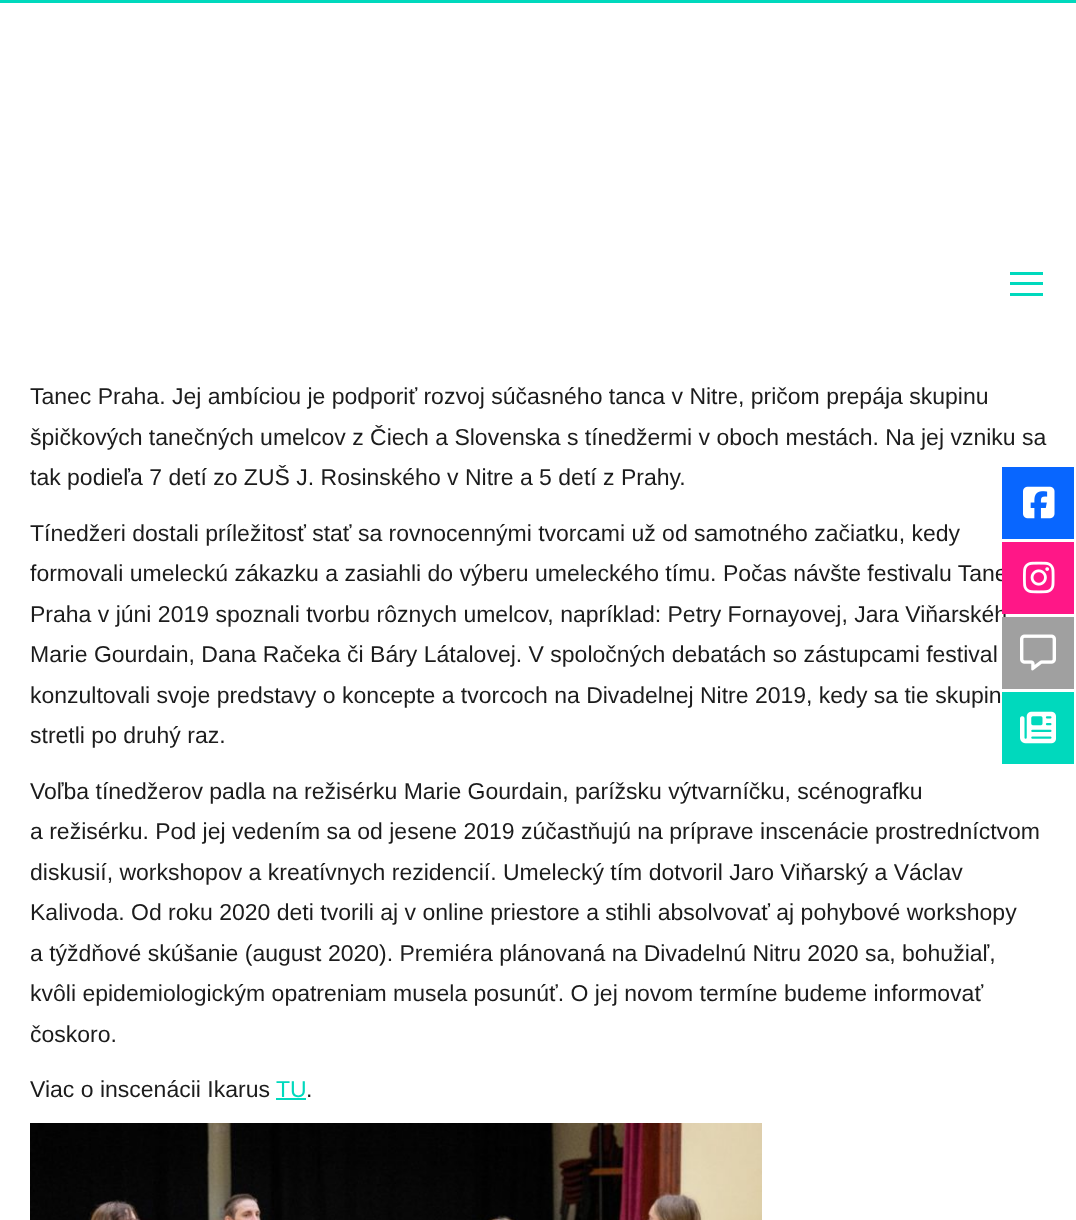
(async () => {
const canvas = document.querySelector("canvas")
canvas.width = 1076
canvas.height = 1220
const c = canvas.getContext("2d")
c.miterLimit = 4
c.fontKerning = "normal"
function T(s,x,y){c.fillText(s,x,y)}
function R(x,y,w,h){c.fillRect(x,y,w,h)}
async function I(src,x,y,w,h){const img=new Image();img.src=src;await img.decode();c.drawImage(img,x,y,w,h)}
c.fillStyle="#fff"
R(0,0,1076,1220)
c.fillStyle="#00d9bd"
R(0,0,1076,3)
R(1010,272,33,3)
R(1010,282,33,3)
R(1010,293,33,3)
c.font="23px Liberation Sans"
c.fillStyle="#1c1c1c"
T("Tanec Praha. Jej ambíciou je podporiť rozvoj súčasného tanca v Nitre, pričom prepája skupinu",30,404)
T("špičkových tanečných umelcov z Čiech a Slovenska s tínedžermi v oboch mestách. Na jej vzniku sa",30,445)
T("tak podieľa 7 detí zo ZUŠ J. Rosinského v Nitre a 5 detí z Prahy.",30,485)
T("Tínedžeri dostali príležitosť stať sa rovnocennými tvorcami už od samotného začiatku, kedy",30,541)
T("formovali umeleckú zákazku a zasiahli do výberu umeleckého tímu. Počas návšte festivalu Tane",30,581)
T("Praha v júni 2019 spoznali tvorbu rôznych umelcov, napríklad: Petry Fornayovej, Jara Viňarskéh",30,622)
T("Marie Gourdain, Dana Račeka či Báry Látalovej. V spoločných debatách so zástupcami festival",30,662)
T("konzultovali svoje predstavy o koncepte a tvorcoch na Divadelnej Nitre 2019, kedy sa tie skupin",30,703)
T("stretli po druhý raz.",30,743)
T("Voľba tínedžerov padla na režisérku Marie Gourdain, parížsku výtvarníčku, scénografku",30,799)
T("a režisérku. Pod jej vedením sa od jesene 2019 zúčastňujú na príprave inscenácie prostredníctvom",30,839)
T("diskusií, workshopov a kreatívnych rezidencií. Umelecký tím dotvoril Jaro Viňarský a Václav",30,880)
T("Kalivoda. Od roku 2020 deti tvorili aj v online priestore a stihli absolvovať aj pohybové workshopy",30,920)
T("a týždňové skúšanie (august 2020). Premiéra plánovaná na Divadelnú Nitru 2020 sa, bohužiaľ,",30,961)
T("kvôli epidemiologickým opatreniam musela posunúť. O jej novom termíne budeme informovať",30,1001)
T("čoskoro.",30,1042)
T("Viac o inscenácii Ikarus",30,1097)
c.fillStyle="#00d9bd"
T("TU",276,1097)
c.fillStyle="#1c1c1c"
T(".",306,1097)
c.fillStyle="#00d9bd"
R(276,1098,30,2)
await I("1.png",30,1123,732,97)
c.fillStyle="#0866ff"
R(1002,467,72,72)
await I("2.png",1023,486,32,33)
c.fillStyle="#ff1787"
R(1002,542,72,72)
await I("3.png",1023,561,32,33)
c.fillStyle="#a0a0a0"
R(1002,617,72,72)
await I("4.png",1020,634,36,37)
c.fillStyle="#00d9bd"
R(1002,692,72,72)
await I("5.png",1020,711,36,33)
})()
